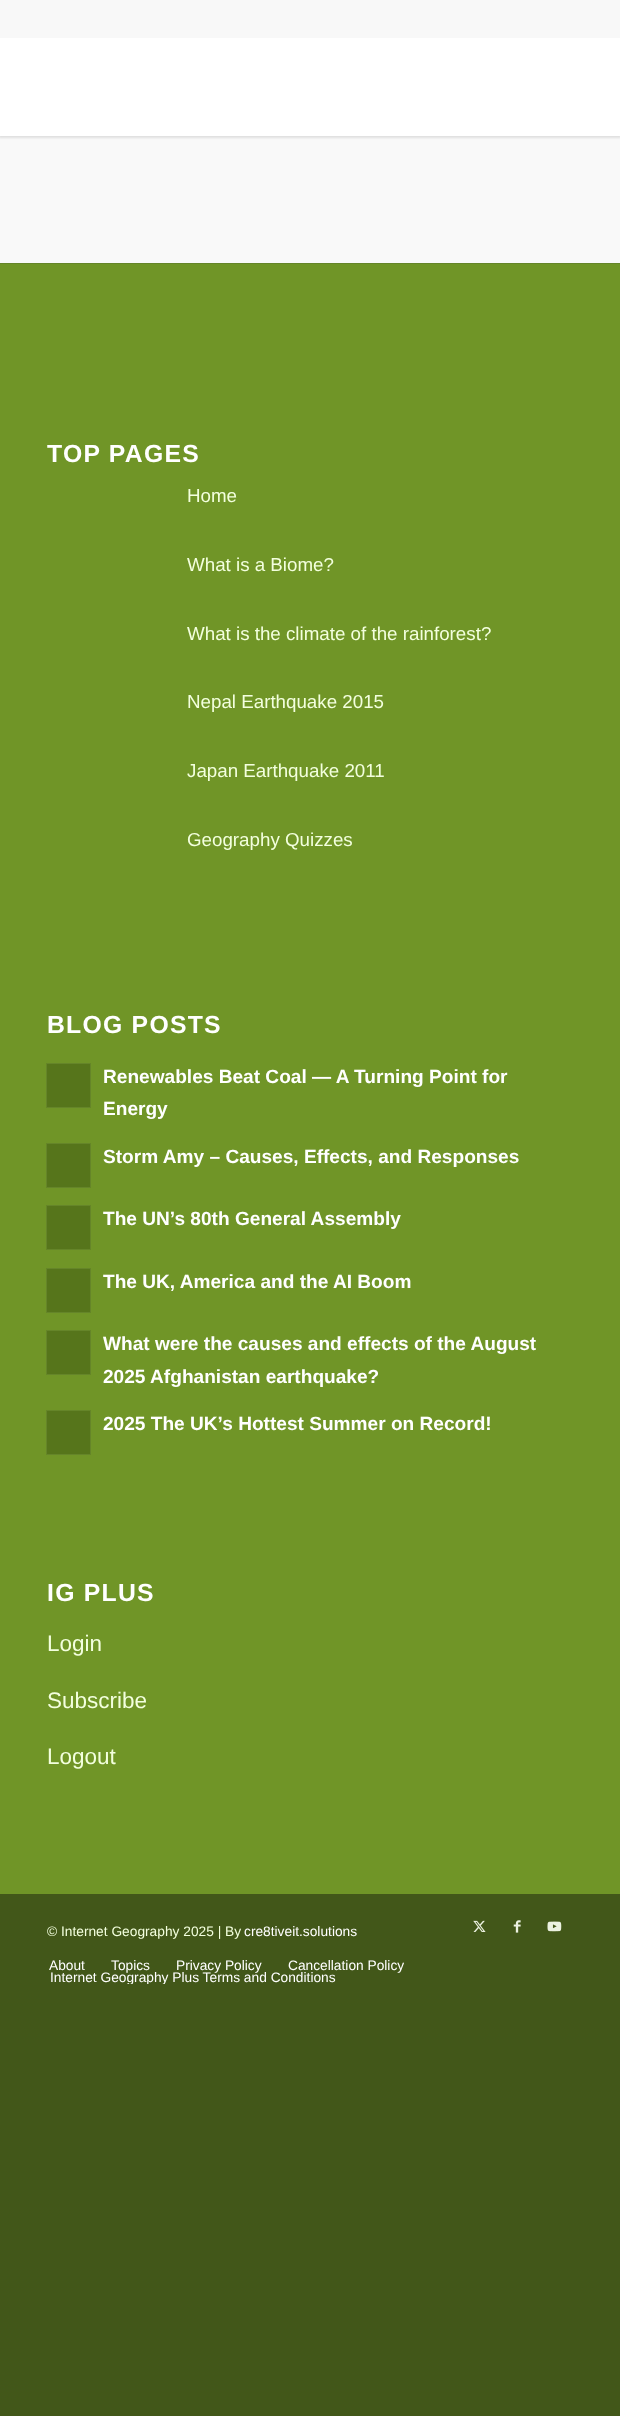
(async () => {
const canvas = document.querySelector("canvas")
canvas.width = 620
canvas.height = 2416
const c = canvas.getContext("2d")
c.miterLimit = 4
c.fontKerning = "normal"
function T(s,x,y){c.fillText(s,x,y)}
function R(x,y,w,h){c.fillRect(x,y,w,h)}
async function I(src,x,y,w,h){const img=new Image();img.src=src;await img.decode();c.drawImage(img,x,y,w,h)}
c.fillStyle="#425719"
R(0,0,620,2416)
c.fillStyle="#f9f9f9"
R(0,136,620,127)
c.fillStyle="#0000001a"
c.filter="blur(1px)"
c.beginPath()
c.rect(-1,-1,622,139)
c.fill()
c.filter="none"
c.fillStyle="#f8f8f8"
R(0,0,620,38)
c.fillStyle="#fff"
R(0,38,620,98)
c.fillStyle="#709527"
R(0,264,620,1630)
c.fillStyle="#658529"
R(0,263,620,1)
c.letterSpacing="1.25px"
c.font="bold 24.75px Liberation Sans"
c.fillStyle="#fff"
T("TOP PAGES",47,462)
c.letterSpacing="0px"
c.font="18.75px Liberation Sans"
c.fillStyle="#f3ffde"
T("Home",187,502)
T("What is a Biome?",187,571)
T("What is the climate of the rainforest?",187,640)
T("Nepal Earthquake 2015",187,708)
T("Japan Earthquake 2011",187,777)
T("Geography Quizzes",187,846)
c.letterSpacing="1.25px"
c.font="bold 24.75px Liberation Sans"
c.fillStyle="#fff"
T("BLOG POSTS",47,1033)
c.fillStyle="#56751b"
c.beginPath()
c.rect(46.5,1063.5,44,44)
c.fill()
c.strokeStyle="#658529"
c.stroke()
c.letterSpacing="0px"
c.font="bold 19.1px Liberation Sans"
c.fillStyle="#fff"
T("Renewables Beat Coal — A Turning Point for",103,1083)
T("Energy",103,1115)
c.fillStyle="#56751b"
c.beginPath()
c.rect(46.5,1143.5,44,44)
c.fill()
c.stroke()
c.fillStyle="#fff"
T("Storm Amy – Causes, Effects, and Responses",103,1163)
c.fillStyle="#56751b"
c.beginPath()
c.rect(46.5,1205.5,44,44)
c.fill()
c.stroke()
c.fillStyle="#fff"
T("The UN’s 80th General Assembly",103,1225)
c.fillStyle="#56751b"
c.beginPath()
c.rect(46.5,1268.5,44,44)
c.fill()
c.stroke()
c.fillStyle="#fff"
T("The UK, America and the AI Boom",103,1288)
c.fillStyle="#56751b"
c.beginPath()
c.rect(46.5,1330.5,44,44)
c.fill()
c.stroke()
c.fillStyle="#fff"
T("What were the causes and effects of the August",103,1350)
T("2025 Afghanistan earthquake?",103,1383)
c.fillStyle="#56751b"
c.beginPath()
c.rect(46.5,1410.5,44,44)
c.fill()
c.stroke()
c.fillStyle="#fff"
T("2025 The UK’s Hottest Summer on Record!",103,1430)
c.letterSpacing="1.25px"
c.font="bold 24.75px Liberation Sans"
T("IG PLUS",47,1601)
c.letterSpacing="0px"
c.font="22.5px Liberation Sans"
c.fillStyle="#f3ffde"
T("Login",47,1651)
T("Subscribe",47,1708)
T("Logout",47,1764)
c.font="13.75px Liberation Sans"
T("© Internet Geography 2025 | By",47,1936)
c.fillStyle="#fff"
T("cre8tiveit.solutions",244,1936)
await I("1.png",473,1920,13,12)
await I("2.png",513,1920,8,13)
await I("3.png",547,1921,15,11)
T("About",49,1970)
T("Topics",111,1970)
T("Privacy Policy",176,1970)
T("Cancellation Policy",288,1970)
c.save()
c.beginPath()
c.rect(28,1951,527,33)
c.clip()
T("Internet Geography Plus Terms and Conditions",50,1982)
c.restore()
})()
